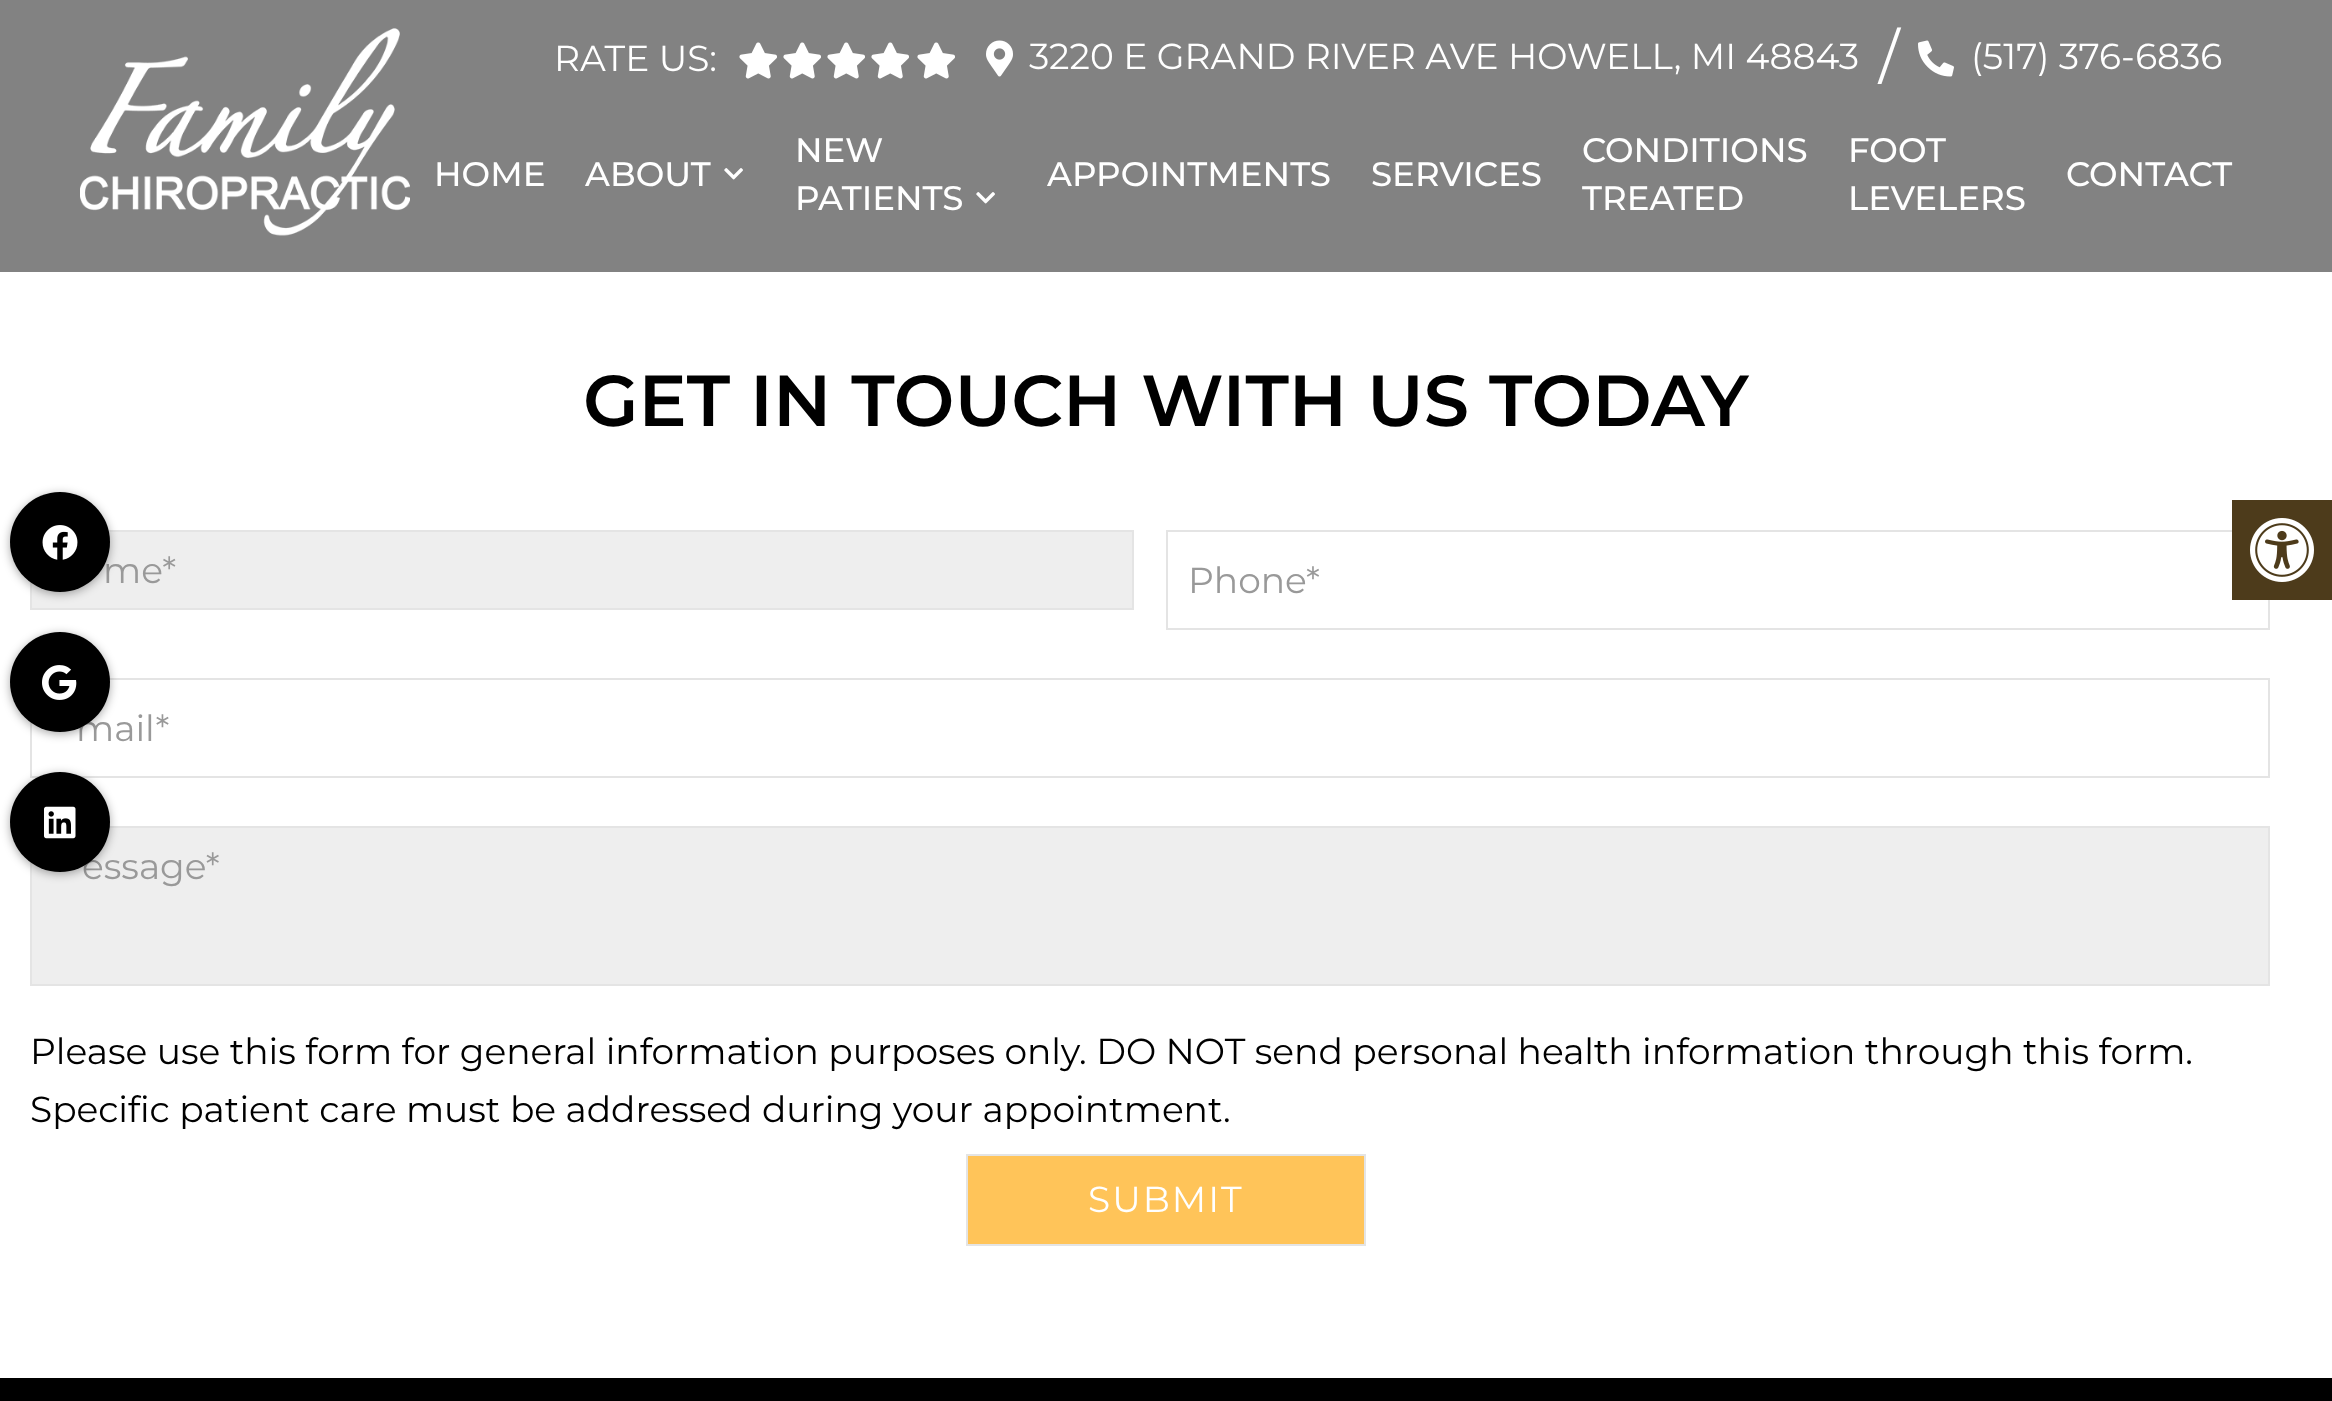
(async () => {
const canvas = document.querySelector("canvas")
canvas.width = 2332
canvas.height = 1401
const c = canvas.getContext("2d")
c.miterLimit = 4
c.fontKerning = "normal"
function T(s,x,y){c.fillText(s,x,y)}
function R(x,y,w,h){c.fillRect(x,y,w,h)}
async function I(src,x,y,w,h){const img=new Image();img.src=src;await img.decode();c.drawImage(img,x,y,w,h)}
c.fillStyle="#fff"
R(0,0,2332,1401)
c.fillStyle="#828282"
R(0,0,2332,272)
await I("1.png",80,28,330,208)
c.font="36px Montserrat"
c.fillStyle="#fff"
T("RATE US:",554,71)
await I("2.png",739,42,38,37)
await I("2.png",783,42,38,37)
await I("2.png",827,42,38,37)
await I("2.png",871,42,38,37)
await I("2.png",917,42,38,37)
await I("3.png",986,40,27,37)
T("3220 E GRAND RIVER AVE HOWELL, MI 48843",1029,69)
c.font="60px Montserrat"
T("/",1879,78)
await I("4.png",1918,40,36,37)
c.font="36px Montserrat"
T("(517) 376-6836",1971,69)
c.font="500 34px Montserrat"
T("HOME",434,186)
T("ABOUT",585,186)
await I("5.png",724,168,19,12)
T("NEW",795,162)
T("PATIENTS",795,210)
await I("5.png",976,192,19,12)
T("APPOINTMENTS",1047,186)
T("SERVICES",1371,186)
T("CONDITIONS",1582,162)
T("TREATED",1582,210)
T("FOOT",1848,162)
T("LEVELERS",1848,210)
T("CONTACT",2066,186)
c.font="600 72px Montserrat"
c.fillStyle="#000"
T("GET IN TOUCH WITH US TODAY",583,426)
c.fillStyle="#eee"
c.beginPath()
c.rect(31,531,1102,78)
c.fill()
c.strokeStyle="#e4e4e4"
c.lineWidth=2
c.stroke()
c.font="36px Montserrat"
c.fillStyle="#999"
T("me*",103,583)
c.strokeRect(1167,531,1102,98)
T("Phone*",1188,593)
c.strokeRect(31,679,2238,98)
T("mail*",76,741)
c.fillStyle="#eee"
c.beginPath()
c.rect(31,827,2238,158)
c.fill()
c.stroke()
c.fillStyle="#999"
T("essage*",82,879)
c.fillStyle="#000"
T("Please use this form for general information purposes only. DO NOT send personal health information through this form.",30,1064)
T("Specific patient care must be addressed during your appointment.",30,1122)
c.fillStyle="#ffc459"
c.beginPath()
c.rect(967,1155,398,90)
c.fill()
c.stroke()
c.letterSpacing="2px"
c.fillStyle="#fff"
T("SUBMIT",1088,1212)
c.fillStyle="#00000057"
c.filter="blur(5px)"
c.beginPath()
c.roundRect(10,494,100,100,50)
c.fill()
c.filter="none"
c.fillStyle="#000"
c.beginPath()
c.arc(60,542,50,0,7)
c.fill()
await I("6.png",42,525,36,35)
c.fillStyle="#00000057"
c.filter="blur(5px)"
c.beginPath()
c.roundRect(10,634,100,100,50)
c.fill()
c.filter="none"
c.fillStyle="#000"
c.beginPath()
c.arc(60,682,50,0,7)
c.fill()
await I("7.png",42,665,35,35)
c.fillStyle="#00000057"
c.filter="blur(5px)"
c.beginPath()
c.roundRect(10,774,100,100,50)
c.fill()
c.filter="none"
c.fillStyle="#000"
c.beginPath()
c.arc(60,822,50,0,7)
c.fill()
await I("8.png",44,806,32,33)
c.fillStyle="#4d3b1b"
R(2232,500,100,100)
await I("9.png",2250,518,64,64)
c.fillStyle="#000"
R(0,1378,2332,23)
})()
